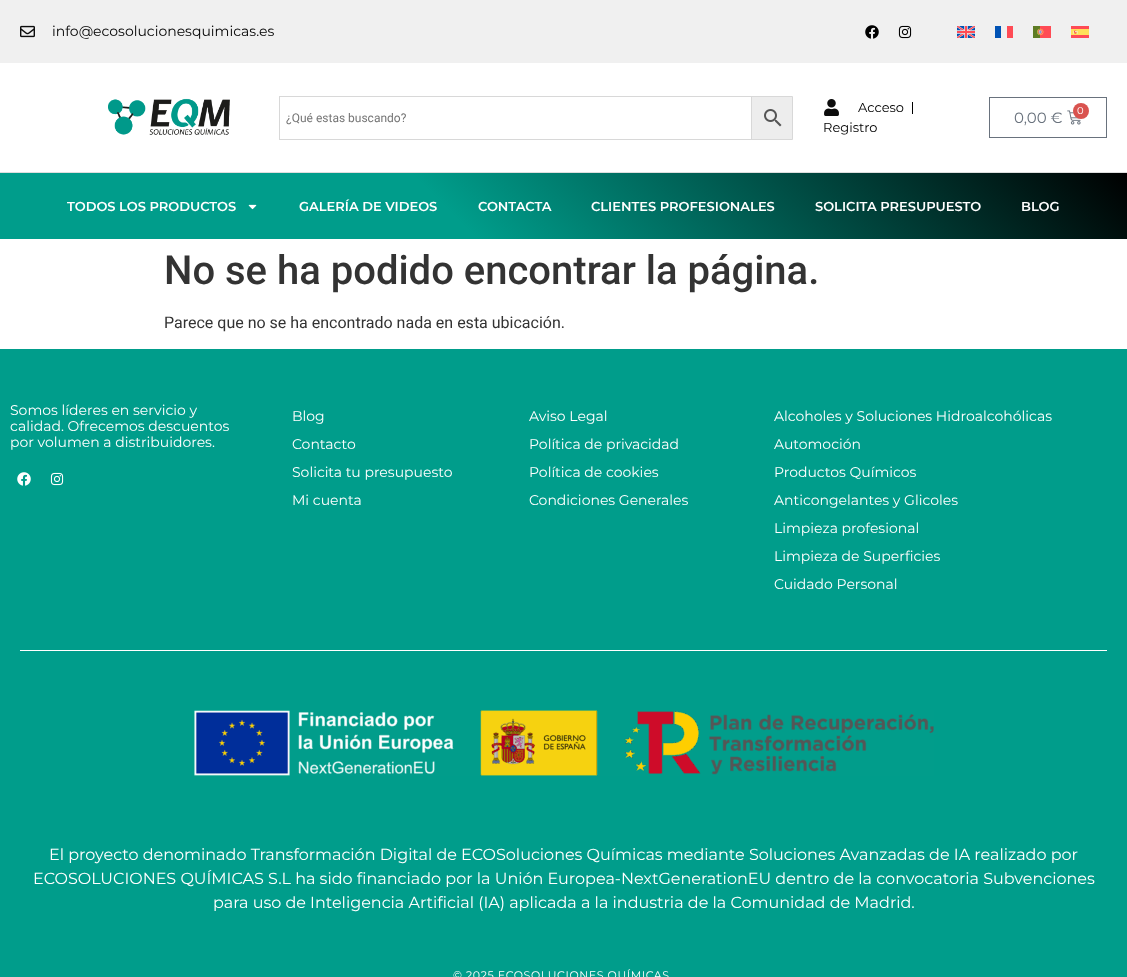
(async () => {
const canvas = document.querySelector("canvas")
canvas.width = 1127
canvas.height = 977
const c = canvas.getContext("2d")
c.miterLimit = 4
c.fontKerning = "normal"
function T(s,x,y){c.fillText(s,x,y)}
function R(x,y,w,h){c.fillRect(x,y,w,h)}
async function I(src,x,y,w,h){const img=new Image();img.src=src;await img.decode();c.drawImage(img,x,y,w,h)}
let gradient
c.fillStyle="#fff"
R(0,0,1127,977)
c.fillStyle="#f0f0f0"
R(0,0,1127,63)
await I("1.png",20,25,15,13)
c.font="14px Montserrat"
c.fillStyle="#000"
T("info@ecosolucionesquimicas.es",52,36)
await I("2.png",865,25,14,14)
await I("3.png",898,25,14,14)
await I("4.png",957,26,18,12)
c.fillStyle="#0052b4"
R(995,26,6,12)
c.fillStyle="#ff4b55"
R(1007,26,6,12)
await I("5.png",1033,26,18,12)
await I("6.png",1071,26,18,12)
c.fillStyle="#dedede"
R(0,172,1127,1)
await I("7.png",108,98,122,37)
c.fillStyle="#ededed"
c.beginPath()
c.rect(751.5,96.5,41,43)
c.fill()
c.strokeStyle="#d8d8d8"
c.stroke()
c.strokeRect(279.5,96.5,472,43)
c.font="12px Roboto"
c.fillStyle="#757575"
T("¿Qué estas buscando?",286,122)
await I("8.png",764,109,18,18)
await I("9.png",824,99,15,17)
c.font="13px Montserrat"
c.fillStyle="#000"
T("Acceso",858,112)
R(912,102,1,12)
T("Registro",823,132)
c.strokeStyle="#69727d"
c.strokeRect(989.5,97.5,117,40)
await I("10.png",1067,110,14,15)
c.fillStyle="#d9534f"
c.beginPath()
c.arc(1081,111,8,0,7)
c.fill()
c.font="10px Montserrat"
c.fillStyle="#fff"
T("0",1077,114)
c.font="15px Montserrat"
c.fillStyle="#69727d"
T("0,00 €",1014,123)
gradient = c.createLinearGradient(265,504,862,-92)
gradient.addColorStop(.4,"#009d8b")
gradient.addColorStop(1,"#000")
c.fillStyle = gradient
R(0,173,1127,66)
c.font="600 13px Montserrat"
c.fillStyle="#fff"
T("TODOS LOS PRODUCTOS",67,211)
await I("11.png",248,204,9,6)
T("GALERÍA DE VIDEOS",299,211)
T("CONTACTA",478,211)
T("CLIENTES PROFESIONALES",591,211)
T("SOLICITA PRESUPUESTO",815,211)
T("BLOG",1021,211)
c.font="500 40px Roboto"
c.fillStyle="#333"
T("No se ha podido encontrar la página.",164,284)
c.font="16px Roboto"
T("Parece que no se ha encontrado nada en esta ubicación.",164,328)
c.fillStyle="#009d8b"
R(0,349,1127,628)
c.font="14px Montserrat"
c.fillStyle="#fff"
T("Somos líderes en servicio y",10,415)
T("calidad. Ofrecemos descuentos",10,431)
T("por volumen a distribuidores.",10,447)
await I("12.png",17,472,14,14)
await I("13.png",50,472,14,14)
T("Blog",292,421)
T("Contacto",292,449)
T("Solicita tu presupuesto",292,477)
T("Mi cuenta",292,505)
T("Aviso Legal",529,421)
T("Política de privacidad",529,449)
T("Política de cookies",529,477)
T("Condiciones Generales",529,505)
T("Alcoholes y Soluciones Hidroalcohólicas",774,421)
T("Automoción",774,449)
T("Productos Químicos",774,477)
T("Anticongelantes y Glicoles",774,505)
T("Limpieza profesional",774,533)
T("Limpieza de Superficies",774,561)
T("Cuidado Personal",774,589)
R(20,650,1087,1)
await I("14.png",194,710,740,66)
c.font="16px Montserrat"
T("El proyecto denominado Transformación Digital de ECOSoluciones Químicas mediante Soluciones Avanzadas de IA realizado por",49,860)
T("ECOSOLUCIONES QUÍMICAS S.L ha sido financiado por la Unión Europea-NextGenerationEU dentro de la convocatoria Subvenciones",33,884)
T("para uso de Inteligencia Artificial (IA) aplicada a la industria de la Comunidad de Madrid.",213,908)
c.letterSpacing="0.6px"
c.font="11px Montserrat"
T("© 2025 ECOSOLUCIONES QUÍMICAS",453,979)
})()
